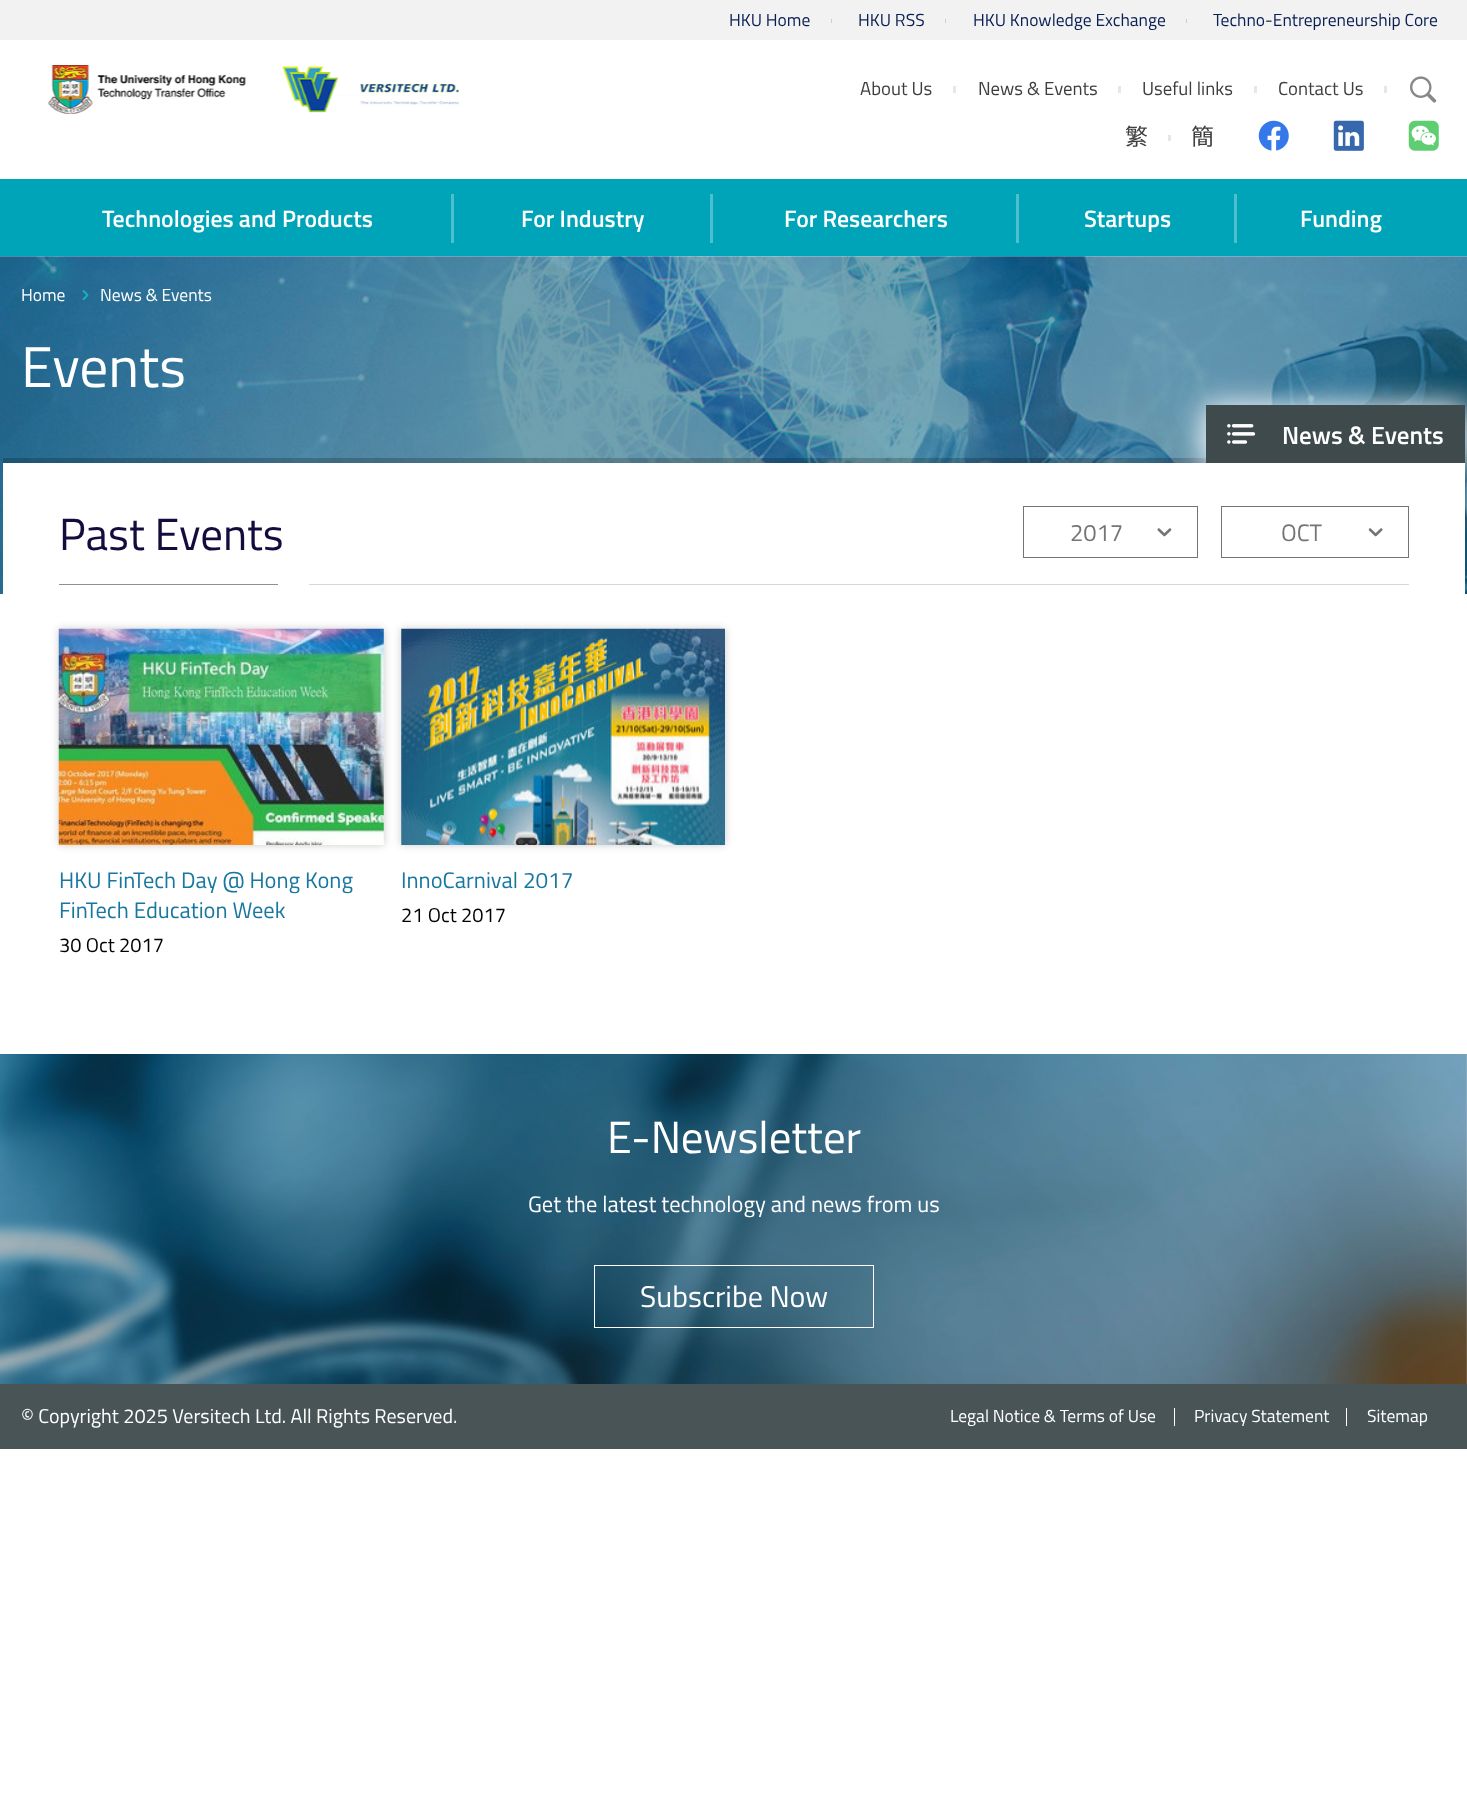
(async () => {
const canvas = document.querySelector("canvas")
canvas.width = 1467
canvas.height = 1807
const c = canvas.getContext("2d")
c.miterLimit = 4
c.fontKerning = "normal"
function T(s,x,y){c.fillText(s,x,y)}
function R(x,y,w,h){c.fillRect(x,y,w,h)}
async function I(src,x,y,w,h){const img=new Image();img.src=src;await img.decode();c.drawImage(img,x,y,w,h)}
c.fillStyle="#fff"
R(0,0,1467,1807)
c.fillStyle="#f2f2f2"
R(0,0,1467,40)
c.font="17.5px Titillium Web"
c.fillStyle="#0a1f53"
T("HKU Home",729,26)
c.fillStyle="#c4cfe1"
R(831,19,1,4)
c.fillStyle="#0a1f53"
T("HKU RSS",858,26)
c.fillStyle="#c4cfe1"
R(945,19,1,4)
c.fillStyle="#0a1f53"
T("HKU Knowledge Exchange",973,26)
c.fillStyle="#c4cfe1"
R(1186,19,1,4)
c.fillStyle="#0a1f53"
T("Techno-Entrepreneurship Core",1213,26)
await I("1.png",48,65,198,49)
await I("2.png",282,66,178,47)
c.font="18.75px Titillium Web"
c.fillStyle="#3e3e3e"
T("About Us",860,95)
c.fillStyle="#e7e7e7"
R(953,86,3,7)
c.fillStyle="#3e3e3e"
T("News & Events",978,95)
c.fillStyle="#e7e7e7"
R(1118,86,3,7)
c.fillStyle="#3e3e3e"
T("Useful links",1142,95)
c.fillStyle="#e7e7e7"
R(1254,86,3,7)
c.fillStyle="#3e3e3e"
T("Contact Us",1278,95)
c.fillStyle="#e7e7e7"
R(1384,86,3,7)
c.font="23px Noto Sans CJK HK"
c.fillStyle="#3e3e3e"
T("繁",1125,145)
c.fillStyle="#e7e7e7"
R(1168,135,3,6)
c.font="23px Noto Sans CJK SC"
c.fillStyle="#3e3e3e"
T("簡",1191,145)
await I("3.png",1258,120,31,31)
await I("4.png",1333,120,31,31)
await I("5.png",1408,120,31,31)
await I("6.png",1410,76,27,27)
c.fillStyle="#00a4b8"
R(0,179,1467,77)
c.font="600 23.75px Titillium Web"
c.fillStyle="#fff"
T("Technologies and Products",102,227)
c.fillStyle="#4dbfcd"
R(451,194,3,49)
c.fillStyle="#fff"
T("For Industry",521,227)
c.fillStyle="#4dbfcd"
R(710,194,3,49)
c.fillStyle="#fff"
T("For Researchers",784,227)
c.fillStyle="#4dbfcd"
R(1016,194,3,49)
c.fillStyle="#fff"
T("Startups",1084,227)
c.fillStyle="#4dbfcd"
R(1234,194,3,49)
c.fillStyle="#fff"
T("Funding",1300,227)
await I("7.png",0,256,1467,338)
c.font="17.5px Titillium Web"
T("Home",21,301)
await I("8.png",82,290,7,11)
T("News & Events",100,301)
c.font="57.5px Titillium Web"
T("Events",21,387)
R(3,463,1462,131)
c.fillStyle="#00000033"
R(3,458,1203,5)
c.strokeStyle="#757575"
c.strokeRect(1023.5,506.5,174,51)
c.strokeRect(1221.5,506.5,187,51)
c.fillStyle="#fff"
c.filter="blur(15.5px)"
c.beginPath()
c.rect(1203,405,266,65)
c.fill()
c.filter="none"
c.fillStyle="#3f4a4c"
R(1206,405,259,58)
await I("9.png",1227,424,29,20)
c.font="600 25px Titillium Web"
c.fillStyle="#fff"
T("News & Events",1282,444)
c.font="45px Titillium Web"
c.fillStyle="#150c3e"
T("Past Events",59,550)
c.font="23.75px Titillium Web"
c.fillStyle="#757575"
T("2017",1070,541)
await I("10.png",1157,528,15,9)
T("OCT",1281,541)
await I("11.png",1368,528,15,9)
c.fillStyle="#8f8f8f"
R(59,584,219,1)
c.fillStyle="#d8d8d8"
R(309,584,1100,1)
c.fillStyle="#00000033"
c.filter="blur(4px)"
c.beginPath()
c.rect(59,629,325,216)
c.fill()
c.filter="none"
await I("12.png",58,628,326,217)
c.font="22.5px Titillium Web"
c.fillStyle="#1877a0"
T("HKU FinTech Day @ Hong Kong",59,888)
T("FinTech Education Week",59,918)
c.font="20px Titillium Web"
c.fillStyle="#000"
T("30 Oct 2017",59,952)
c.fillStyle="#00000033"
c.filter="blur(4px)"
c.beginPath()
c.rect(401,629,324,216)
c.fill()
c.filter="none"
await I("13.png",401,628,324,217)
c.font="22.5px Titillium Web"
c.fillStyle="#1877a0"
T("InnoCarnival 2017",401,888)
c.font="20px Titillium Web"
c.fillStyle="#000"
T("21 Oct 2017",401,922)
await I("14.png",0,1054,1467,330)
c.font="45px Titillium Web"
c.fillStyle="#fff"
T("E-Newsletter",607,1153)
c.font="22.5px Titillium Web"
T("Get the latest technology and news from us",528,1212)
c.strokeStyle="#fff"
c.strokeRect(594.5,1265.5,279,62)
c.font="30px Titillium Web"
T("Subscribe Now",640,1307)
c.fillStyle="#485456"
R(0,1384,1467,65)
c.font="20px Titillium Web"
c.fillStyle="#fff"
T("© Copyright 2025 Versitech Ltd. All Rights Reserved.",21,1423)
c.font="17.5px Titillium Web"
T("Legal Notice & Terms of Use",950,1422)
R(1174,1408,1,18)
T("Privacy Statement",1194,1422)
R(1346,1408,1,18)
T("Sitemap",1367,1422)
})()
